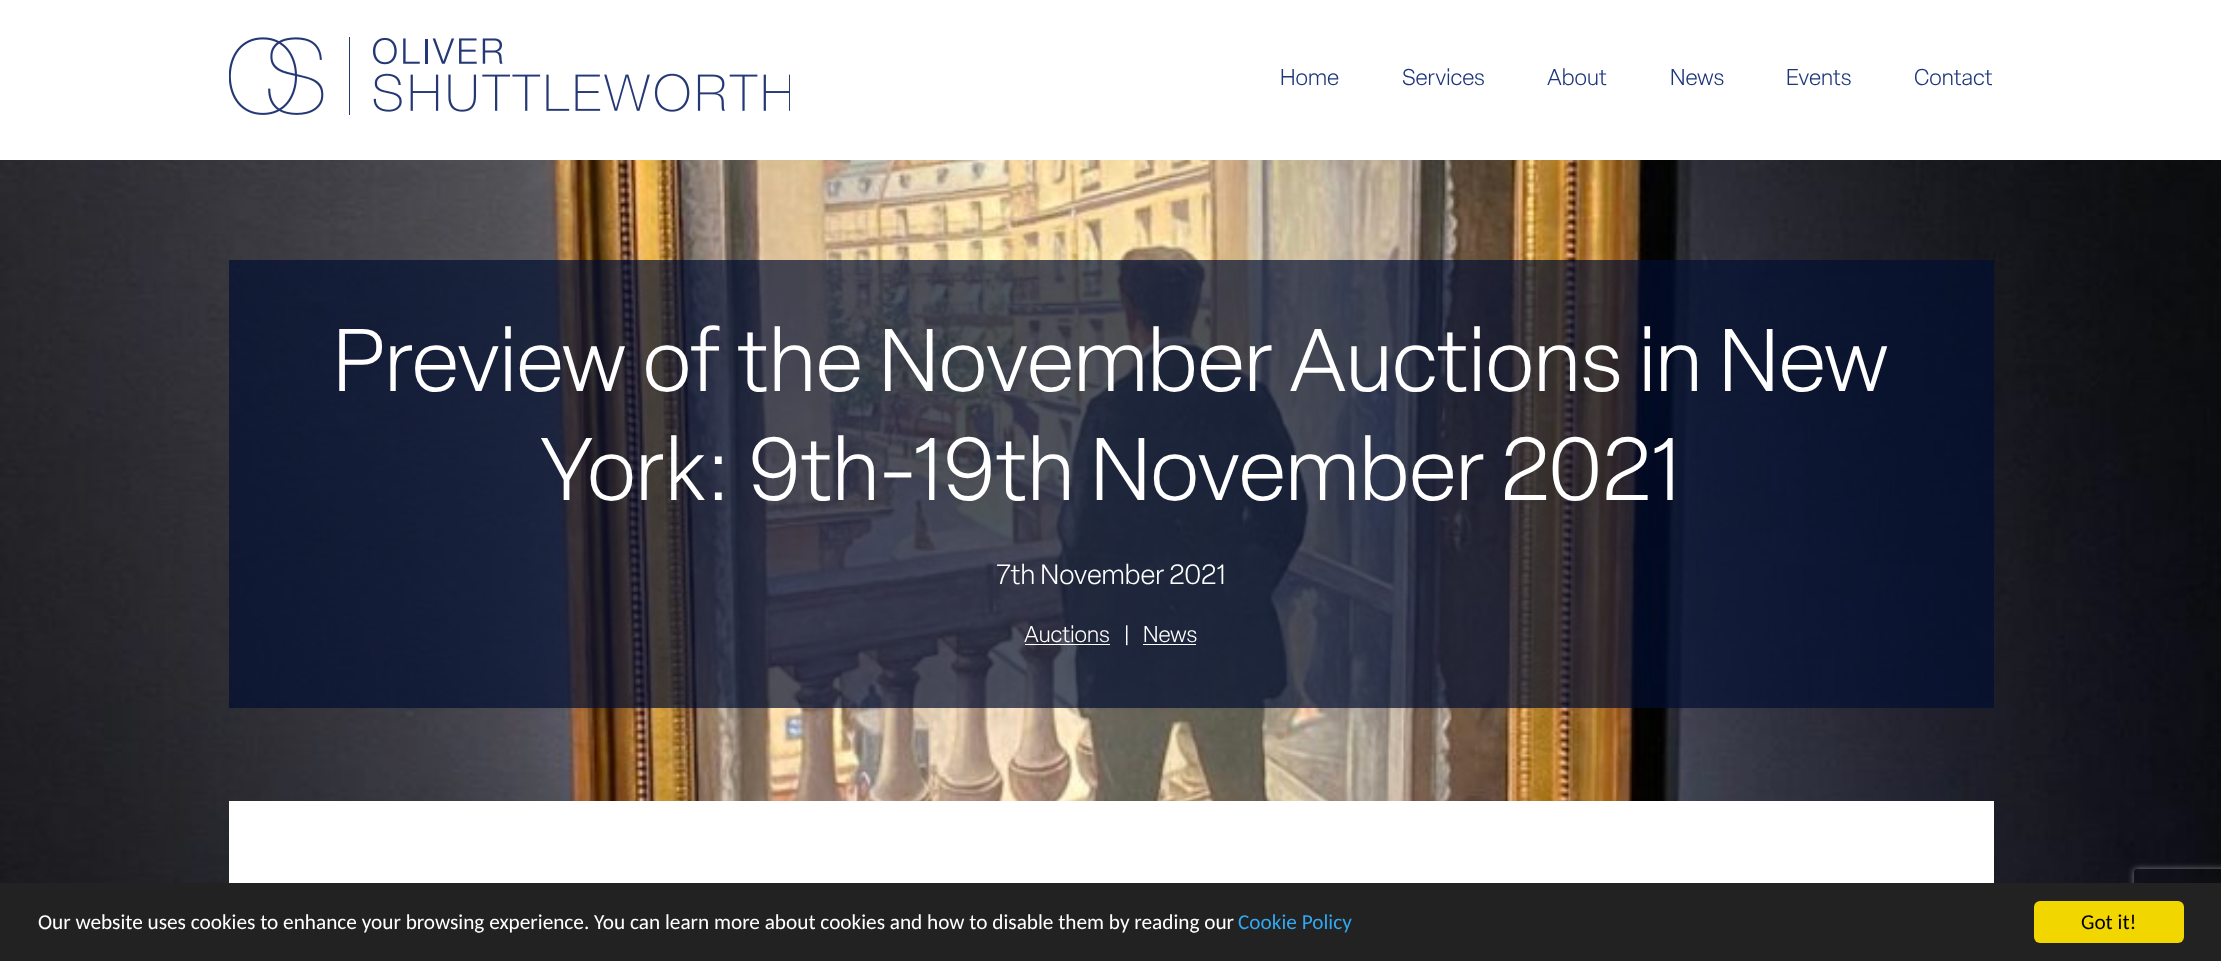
(async () => {
const canvas = document.querySelector("canvas")
canvas.width = 2221
canvas.height = 961
const c = canvas.getContext("2d")
c.miterLimit = 4
c.fontKerning = "normal"
function T(s,x,y){c.fillText(s,x,y)}
function R(x,y,w,h){c.fillRect(x,y,w,h)}
function Q(x,y,w,h,r){c.beginPath();c.roundRect(x,y,w,h,r);c.fill()}
async function I(src,x,y,w,h){const img=new Image();img.src=src;await img.decode();c.drawImage(img,x,y,w,h)}
let path
c.fillStyle="#fff"
R(0,0,2221,961)
await I("1.png",229,37,561,78)
c.font="300 22.5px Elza"
c.fillStyle="#1c357b"
T("Home",1280,85)
T("Services",1402,85)
T("About",1547,85)
T("News",1670,85)
T("Events",1786,85)
T("Contact",1914,85)
await I("2.png",0,160,2221,723)
c.fillStyle="#010e31b3"
R(229,260,1765,448)
c.font="300 87.5px Elza"
c.fillStyle="#fff"
T("Preview of the November Auctions in New",333,391)
T("York: 9th-19th November 2021",540,500)
c.font="300 27.5px Elza"
T("7th November 2021",996,584)
c.font="300 22.5px Elza"
T("Auctions",1024,642)
R(1025,644,85,1)
T("|",1123,642)
T("News",1143,642)
R(1143,644,53,1)
R(229,801,1765,82)
c.save()
path = new Path2D("M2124 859h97v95h-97zm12.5 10h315c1.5 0 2.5 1 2.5 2.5v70c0 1.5-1 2.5-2.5 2.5h-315c-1.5 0-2.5-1-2.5-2.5v-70c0-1.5 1-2.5 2.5-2.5z")
c.clip(path,"evenodd")
c.fillStyle="#808080"
c.filter="blur(3px)"
c.beginPath()
c.roundRect(2134,869,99,75,2.5)
c.fill()
c.filter="none"
c.restore()
c.fillStyle="#222"
R(0,883,2221,78)
c.font="21.25px Carlito"
c.fillStyle="#fff"
T("Our website uses cookies to enhance your browsing experience. You can learn more about cookies and how to disable them by reading our",38,929)
c.fillStyle="#31a8f0"
T("Cookie Policy",1238,929)
c.fillStyle="#f1d600"
Q(2034,901,150,42,6)
c.fillStyle="#000"
T("Got it!",2081,929)
})()
